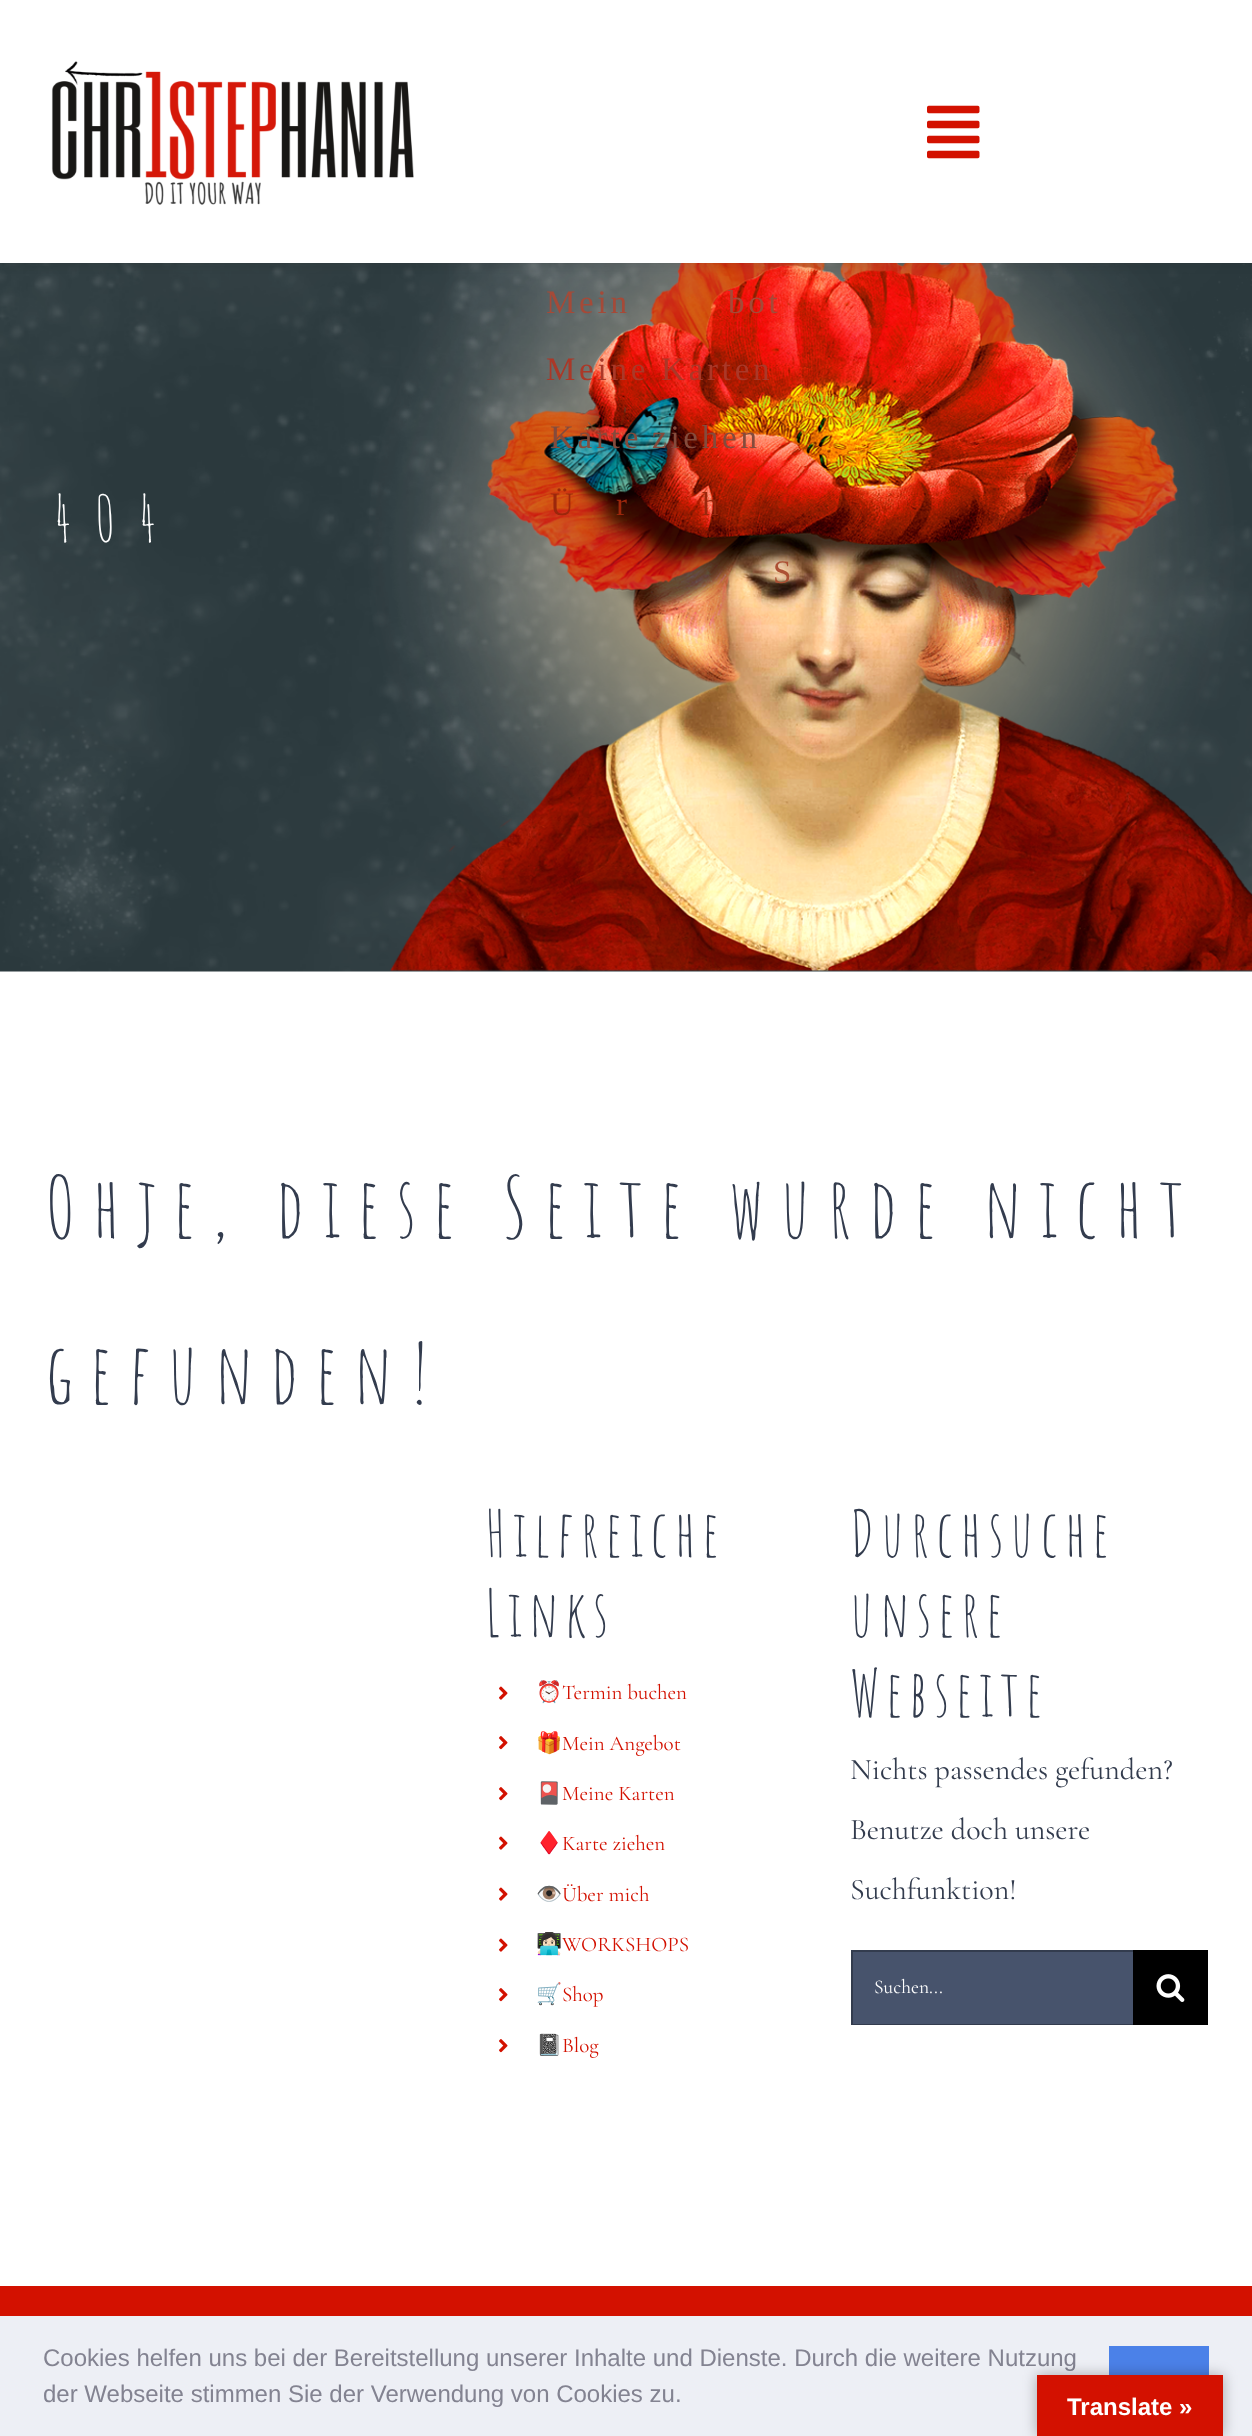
(async () => {
const canvas = document.querySelector("canvas")
canvas.width = 1252
canvas.height = 2436
const c = canvas.getContext("2d")
c.miterLimit = 4
c.fontKerning = "normal"
function T(s,x,y){c.fillText(s,x,y)}
function R(x,y,w,h){c.fillRect(x,y,w,h)}
async function I(src,x,y,w,h){const img=new Image();img.src=src;await img.decode();c.drawImage(img,x,y,w,h)}
c.fillStyle="#fff"
R(0,0,1252,2436)
await I("1.png",0,263,1252,709)
c.letterSpacing="22.5px"
c.font="64px Amatic SC"
T("404",53,542)
c.fillStyle="#2121211a"
c.filter="blur(4px)"
c.beginPath()
c.rect(0,3,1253,263)
c.fill()
c.filter="none"
c.fillStyle="#fff"
R(0,0,1252,263)
await I("2.png",51,61,363,144)
await I("3.png",927,105,53,54)
c.letterSpacing="3.75px"
c.font="33px Liberation Serif"
c.fillStyle="#a54a38"
T("Mein",546,313)
T("bot",728,313)
c.fillStyle="#ab3828"
T("Meine Karten",546,380)
c.wordSpacing="-2px"
c.fillStyle="#844b3c"
T("Karte ziehen",550,448)
c.fillStyle="#9b270c"
T("Ü",550,515)
T("r",616,515)
T("h",702,515)
c.wordSpacing="0px"
c.fillStyle="#ac5034"
T("S",773,583)
c.letterSpacing="16.7px"
c.font="83.5px Amatic SC"
c.fillStyle="#333c4e"
T("Ohje, diese Seite wurde nicht",45,1238)
T("gefunden!",45,1404)
c.letterSpacing="6.5px"
c.font="64px Amatic SC"
T("Hilfreiche",485,1557)
T("Links",485,1637)
await I("4.png",499,1686,9,14)
c.letterSpacing="0px"
c.font="21px Noto Color Emoji"
c.fillStyle="#d31100"
T("⏰",536,1699)
c.font="21px Cormorant Garamond"
T("Termin buchen",562,1699)
await I("5.png",499,1736,9,14)
c.font="21px Noto Color Emoji"
T("🎁",536,1750)
c.font="21px Cormorant Garamond"
T("Mein Angebot",562,1750)
await I("5.png",499,1787,9,14)
c.font="21px Noto Color Emoji"
T("🎴",536,1800)
c.font="21px Cormorant Garamond"
T("Meine Karten",562,1800)
await I("4.png",499,1836,9,14)
c.font="21px Noto Color Emoji"
T("♦️",536,1850)
c.font="21px Cormorant Garamond"
T("Karte ziehen",562,1850)
await I("4.png",499,1887,9,14)
c.font="21px Noto Color Emoji"
T("👁️",536,1901)
c.font="21px Cormorant Garamond"
T("Über mich",562,1901)
await I("4.png",499,1938,9,14)
c.font="21px Noto Color Emoji"
T("👩🏻‍💻",536,1951)
c.font="21px Cormorant Garamond"
T("WORKSHOPS",562,1951)
await I("5.png",499,1988,9,14)
c.font="21px Noto Color Emoji"
T("🛒",536,2001)
c.font="21px Cormorant Garamond"
T("Shop",562,2001)
await I("5.png",499,2039,9,14)
c.font="21px Noto Color Emoji"
T("📓",536,2052)
c.font="21px Cormorant Garamond"
T("Blog",562,2052)
c.letterSpacing="6.5px"
c.font="64px Amatic SC"
c.fillStyle="#333c4e"
T("Durchsuche",850,1557)
T("unsere",850,1637)
T("Webseite",850,1717)
c.letterSpacing="0px"
c.font="30px Cormorant Garamond"
T("Nichts passendes gefunden?",850,1779)
T("Benutze doch unsere",850,1839)
T("Suchfunktion!",850,1899)
c.fillStyle="#47536c"
R(853,1952,280,72)
c.fillStyle="#333c4e"
R(851,1950,282,2)
R(851,2024,282,1)
R(851,1950,2,75)
c.font="19.5px Cormorant Garamond"
c.fillStyle="#fff"
T("Suchen...",874,1993)
c.fillStyle="#000"
R(1133,1950,75,75)
await I("6.png",1156,1974,29,28)
c.fillStyle="#edeff5"
R(0,2316,1252,120)
c.font="24px Liberation Sans"
c.fillStyle="#838391"
T("Cookies helfen uns bei der Bereitstellung unserer Inhalte und Dienste. Durch die weitere Nutzung",43,2366)
T("der Webseite stimmen Sie der Verwendung von Cookies zu.",43,2402)
c.fillStyle="#4b81e8"
R(1109,2346,100,29)
c.fillStyle="#d31100"
R(0,2286,1252,30)
c.fillStyle="#0000004d"
c.filter="blur(7px)"
c.beginPath()
c.rect(1037,2375,186,61)
c.fill()
c.filter="none"
c.fillStyle="#d31100"
R(1037,2375,186,61)
c.font="bold 24px Liberation Sans"
c.fillStyle="#fff"
T("Translate »",1067,2415)
})()
